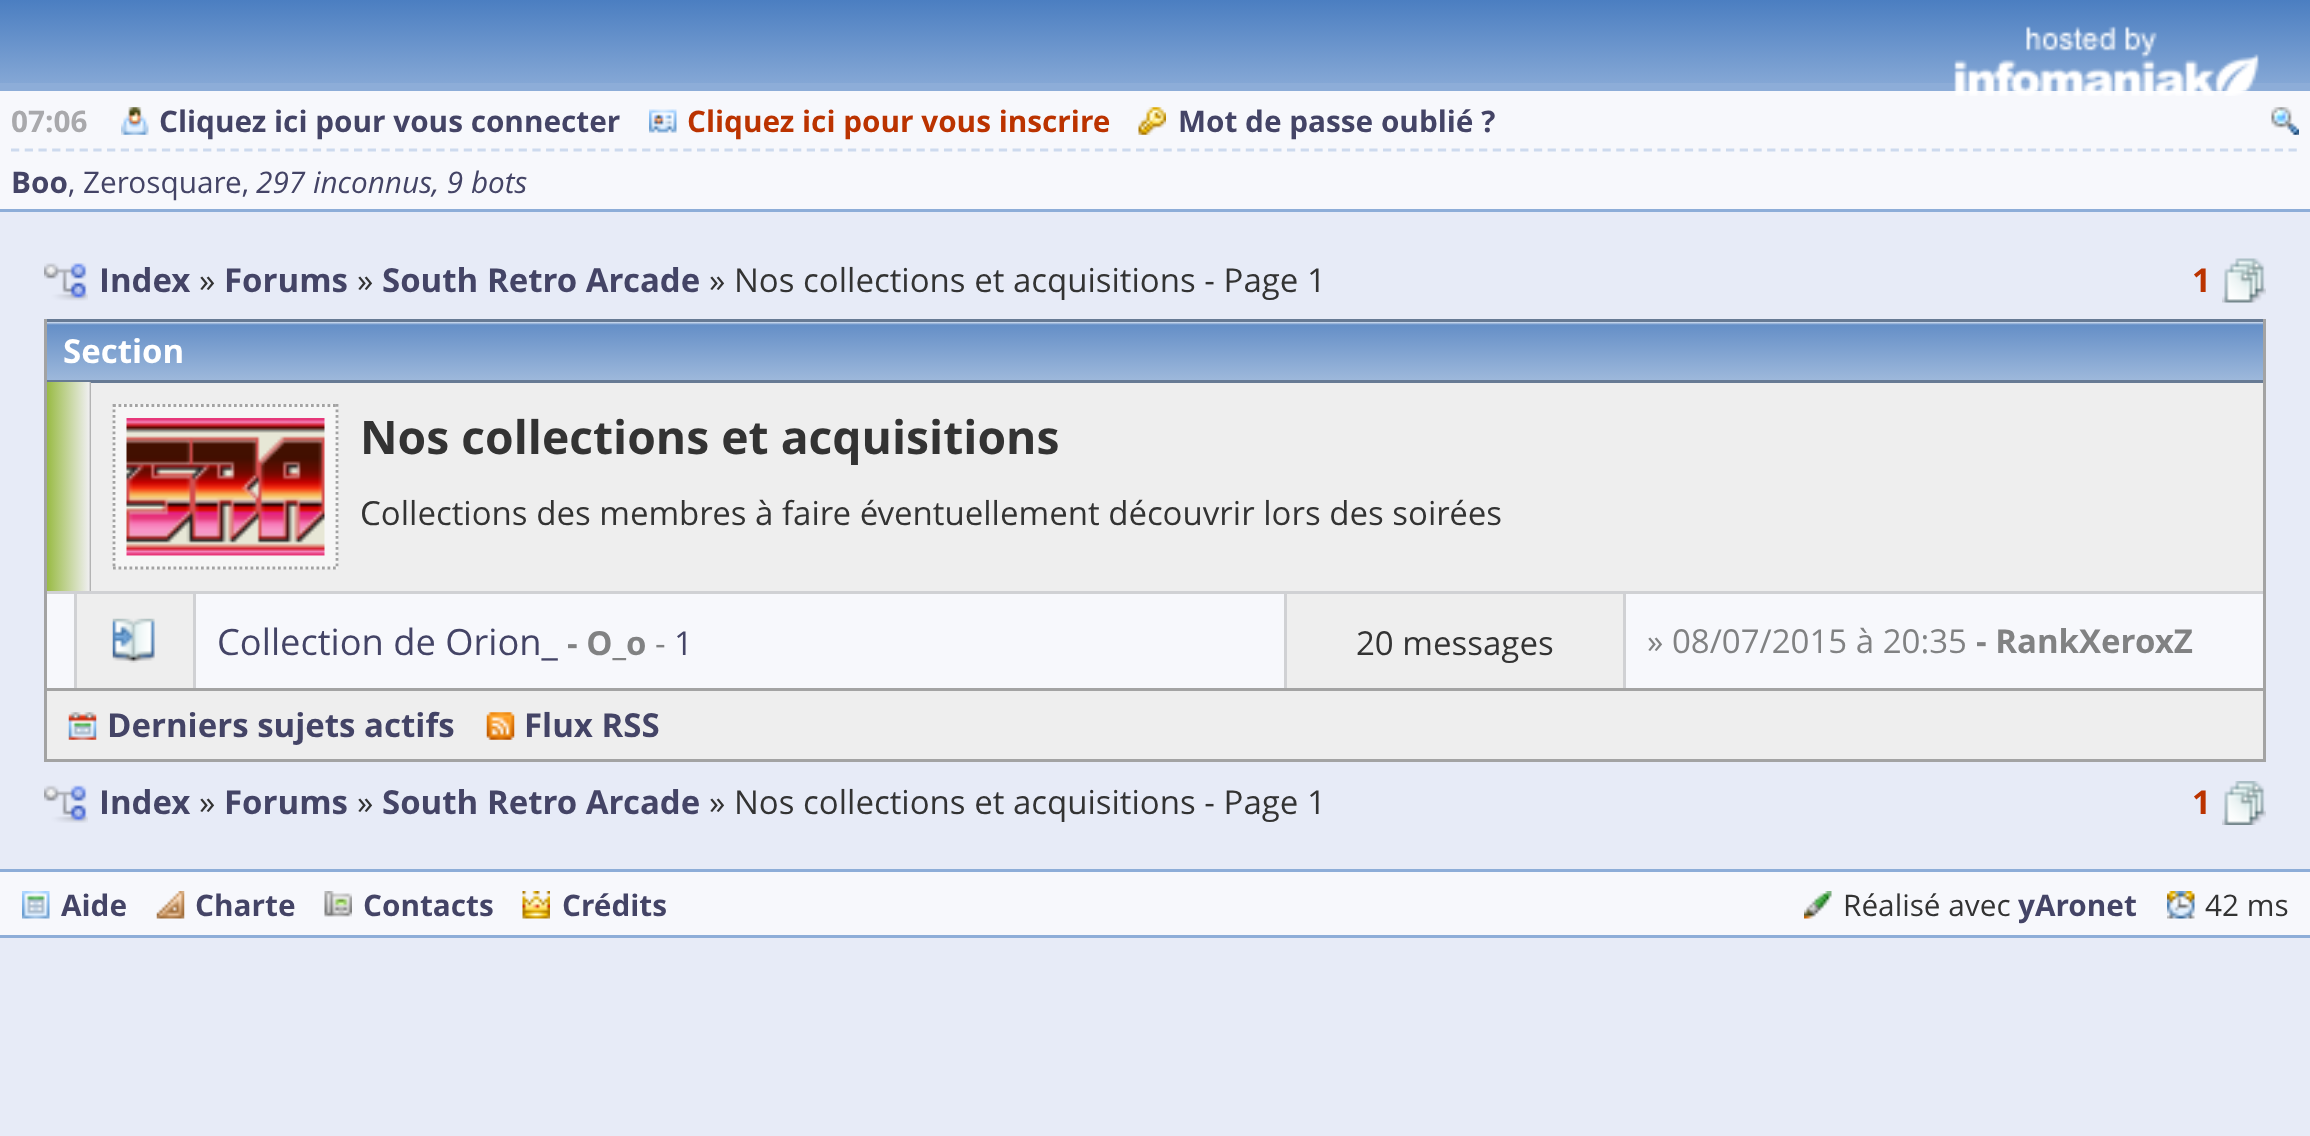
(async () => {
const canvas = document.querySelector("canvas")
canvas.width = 2310
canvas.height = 1136
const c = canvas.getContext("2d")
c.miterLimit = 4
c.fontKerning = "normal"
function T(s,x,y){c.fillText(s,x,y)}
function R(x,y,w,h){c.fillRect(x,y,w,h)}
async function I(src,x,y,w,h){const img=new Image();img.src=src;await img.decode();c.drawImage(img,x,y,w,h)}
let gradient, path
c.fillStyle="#e7ebf7"
R(0,0,2310,1136)
gradient = c.createLinearGradient(1155,0,1155,83)
gradient.addColorStop(0,"#4b7ec1")
gradient.addColorStop(1,"#84a7d5")
c.fillStyle = gradient
R(0,0,2310,83)
c.fillStyle="#8dadd8"
R(0,83,2310,8)
c.fillStyle="#f7f8fc"
R(0,91,2310,118)
await I("1.png",1954,26,305,70)
c.fillStyle="#8dadd8"
R(0,209,2310,3)
c.font="bold 29.75px Open Sans"
c.fillStyle="#a9a9ac"
T("07:06",11,132)
await I("2.png",121,107,28,28)
c.fillStyle="#446"
T("Cliquez ici pour vous connecter",159,132)
await I("3.png",649,109,28,24)
c.fillStyle="#b30"
T("Cliquez ici pour vous inscrire",687,132)
await I("4.png",1138,107,28,28)
c.fillStyle="#446"
T("Mot de passe oublié ?",1178,132)
await I("5.png",2271,107,28,28)
path = new Path2D("M11 150h2288")
c.strokeStyle="#cddaee"
c.lineWidth=2.8
c.setLineDash([8.25,5.47])
c.stroke(path)
T("Boo",11,193)
c.font="29.75px Open Sans"
T(", Zerosquare,",68,193)
c.font="italic 29.75px Open Sans"
T("297 inconnus, 9 bots",256,193)
await I("6.png",44,263,44,38)
c.font="bold 33px Open Sans"
T("Index",99,292)
c.font="33px Open Sans"
c.fillStyle="#333"
T("»",199,292)
c.font="bold 33px Open Sans"
c.fillStyle="#446"
T("Forums",224,292)
c.font="33px Open Sans"
c.fillStyle="#333"
T("»",357,292)
c.font="bold 33px Open Sans"
c.fillStyle="#446"
T("South Retro Arcade",382,292)
c.font="33px Open Sans"
c.fillStyle="#333"
T("» Nos collections et acquisitions - Page 1",709,292)
await I("7.png",2222,258,44,45)
c.font="bold 33px Open Sans"
c.fillStyle="#b30"
T("1",2192,292)
c.fillStyle="#eee"
R(77,383,2186,305)
c.fillStyle="#a3a3a3"
R(2263,319,3,443)
R(44,759,2222,3)
R(44,319,3,443)
gradient = c.createLinearGradient(1155,322,1155,380)
gradient.addColorStop(0,"#d5e0f0")
gradient.addColorStop(.05,"#658fc7")
gradient.addColorStop(1,"#9db8db")
c.fillStyle = gradient
R(47,322,2216,58)
c.fillStyle="#677a94"
R(47,319,2216,3)
R(47,380,2216,3)
c.fillStyle="#fff"
T("Section",63,363)
gradient = c.createLinearGradient(47,487,91,487)
gradient.addColorStop(0,"#9b4")
gradient.addColorStop(.95,"#eee")
gradient.addColorStop(1,"#a3a3a3")
c.fillStyle = gradient
R(47,382,44,209)
c.fillStyle="#f6f6f6"
R(113,404,225,165)
path = new Path2D("M113 405.5h225")
c.strokeStyle="#a3a3a3"
c.setLineDash([2.75,2.75])
c.stroke(path)
path = new Path2D("M337 404v165")
c.stroke(path)
path = new Path2D("M113 568h225")
c.stroke(path)
path = new Path2D("M114 404v165")
c.stroke(path)
await I("8.png",126,418,199,138)
c.font="bold 46.25px Open Sans"
c.fillStyle="#333"
T("Nos collections et acquisitions",360,454)
c.font="33px Open Sans"
T("Collections des membres à faire éventuellement découvrir lors des soirées",360,525)
c.fillStyle="#d0d1d4"
R(47,591,2216,3)
c.fillStyle="#f7f8fc"
R(47,594,27,94)
c.fillStyle="#d0d1d4"
R(193,591,3,99)
R(74,591,3,99)
await I("9.png",112,618,43,45)
c.fillStyle="#f7f8fc"
R(196,594,1088,94)
c.font="36.25px Open Sans"
c.fillStyle="#446"
T("Collection de Orion_",217,655)
c.font="bold 33px Open Sans"
c.fillStyle="#818283"
T("- O_o",567,655)
c.font="33px Open Sans"
T("-",655,655)
c.fillStyle="#446"
T("1",674,655)
c.fillStyle="#d0d1d4"
R(1623,591,3,99)
R(1284,591,3,99)
c.fillStyle="#333"
T("20 messages",1356,655)
c.fillStyle="#f7f8fc"
R(1626,594,637,94)
c.fillStyle="#818283"
T("» 08/07/2015 à 20:35",1647,653)
c.font="bold 33px Open Sans"
T("- RankXeroxZ",1976,653)
c.fillStyle="#eee"
R(47,691,2216,68)
c.fillStyle="#a3a3a3"
R(47,688,2216,3)
await I("10.png",68,712,29,28)
c.fillStyle="#446"
T("Derniers sujets actifs",107,737)
await I("11.png",486,712,29,28)
T("Flux RSS",524,737)
await I("12.png",44,785,44,38)
T("Index",99,814)
c.font="33px Open Sans"
c.fillStyle="#333"
T("»",199,814)
c.font="bold 33px Open Sans"
c.fillStyle="#446"
T("Forums",224,814)
c.font="33px Open Sans"
c.fillStyle="#333"
T("»",357,814)
c.font="bold 33px Open Sans"
c.fillStyle="#446"
T("South Retro Arcade",382,814)
c.font="33px Open Sans"
c.fillStyle="#333"
T("» Nos collections et acquisitions - Page 1",709,814)
await I("13.png",2222,781,44,44)
c.font="bold 33px Open Sans"
c.fillStyle="#b30"
T("1",2192,814)
c.fillStyle="#f7f8fc"
R(0,872,2310,63)
c.fillStyle="#8dadd8"
R(0,869,2310,3)
R(0,935,2310,3)
await I("14.png",22,891,28,28)
c.font="bold 29.75px Open Sans"
c.fillStyle="#446"
T("Aide",61,916)
await I("15.png",156,891,29,28)
T("Charte",195,916)
await I("16.png",324,891,28,26)
T("Contacts",363,916)
await I("17.png",522,891,28,28)
T("Crédits",562,916)
await I("18.png",1804,891,28,28)
c.font="29.75px Open Sans"
c.fillStyle="#333"
T("Réalisé avec",1843,916)
c.font="bold 29.75px Open Sans"
c.fillStyle="#446"
T("yAronet",2018,916)
await I("19.png",2167,891,28,28)
c.font="29.75px Open Sans"
c.fillStyle="#333"
T("42 ms",2205,916)
})()
